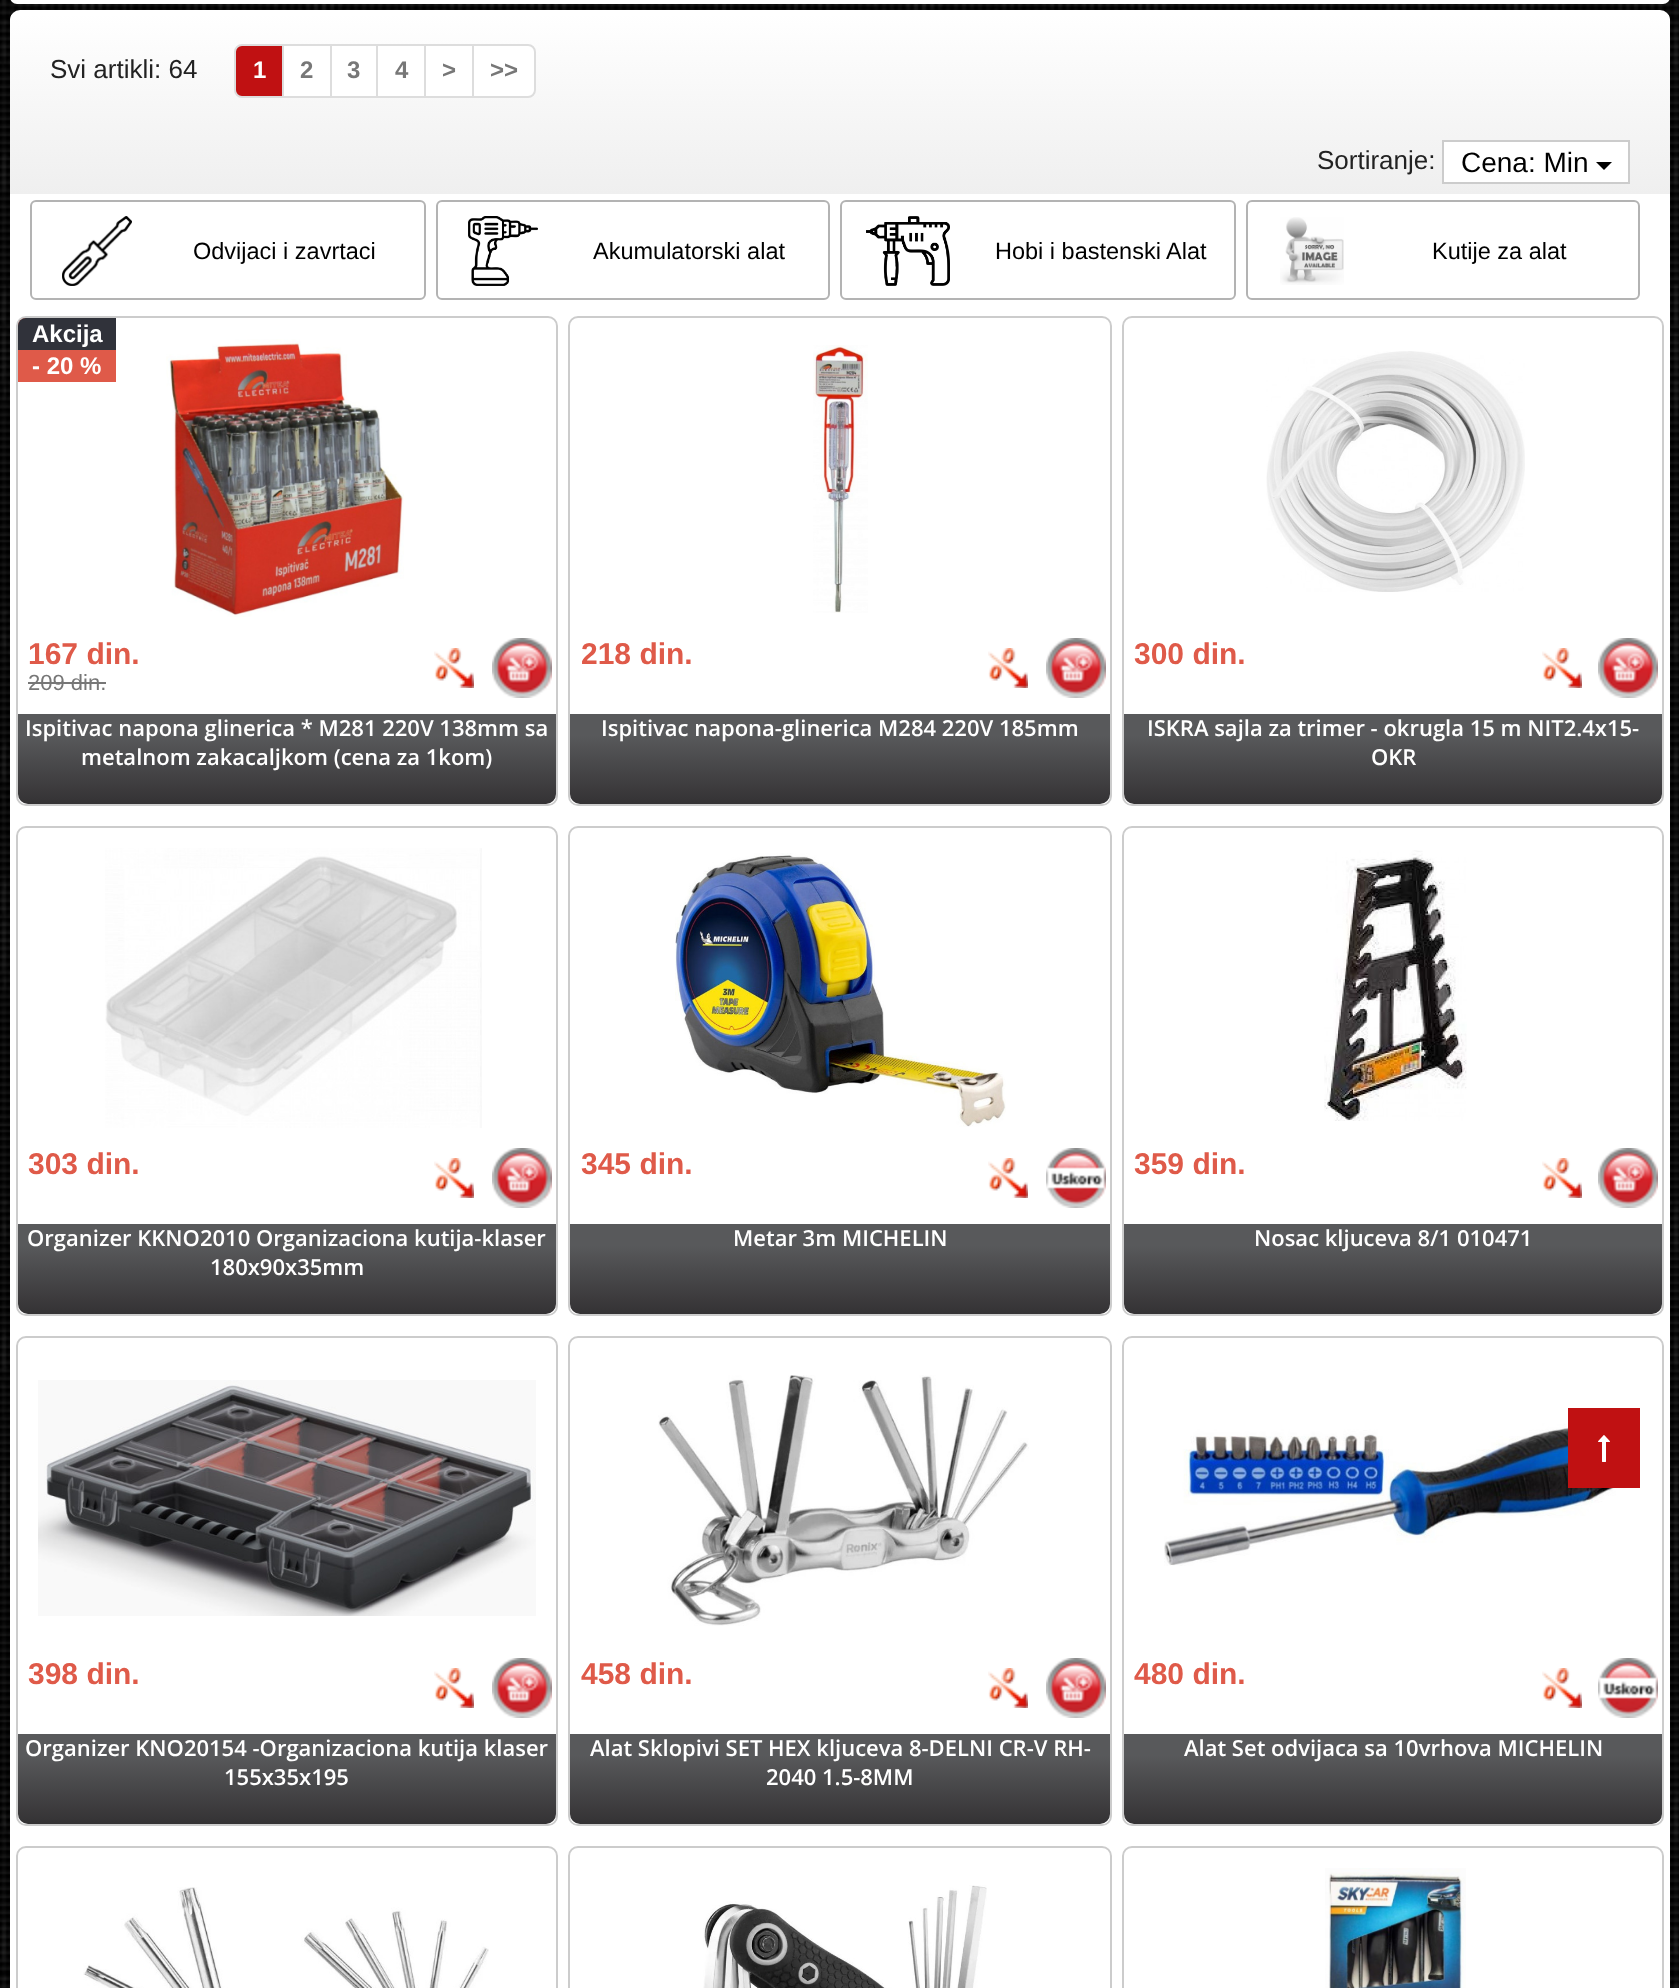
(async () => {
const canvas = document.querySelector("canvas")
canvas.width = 1679
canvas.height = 1988
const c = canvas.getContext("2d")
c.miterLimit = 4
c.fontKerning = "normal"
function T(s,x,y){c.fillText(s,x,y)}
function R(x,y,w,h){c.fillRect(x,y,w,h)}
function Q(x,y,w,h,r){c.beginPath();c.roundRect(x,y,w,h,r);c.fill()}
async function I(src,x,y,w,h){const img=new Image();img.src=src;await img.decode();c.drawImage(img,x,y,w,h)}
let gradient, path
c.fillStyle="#fff"
R(0,0,1679,1988)
await I("1.png",0,0,1679,1988)
Q(10,-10,1660,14,10)
Q(10,10,1660,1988,10)
c.save()
c.beginPath()
c.roundRect(10,10,1660,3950,10)
c.clip()
gradient = c.createLinearGradient(840,14,840,194)
gradient.addColorStop(0,"#fff")
gradient.addColorStop(1,"#efefef")
c.fillStyle = gradient
R(10,14,1660,180)
c.restore()
c.font="26px Liberation Sans"
c.fillStyle="#222"
T("Svi artikli: 64",50,78)
c.fillStyle="#fff"
c.beginPath()
c.rect(283,45,48,52)
c.fill()
c.strokeStyle="#ddd"
c.lineWidth=2
c.stroke()
c.fillStyle="#c01112"
c.beginPath()
c.roundRect(235,45,48,52,[7,0,0,7])
c.fill()
c.stroke()
c.font="bold 24px Liberation Sans"
c.fillStyle="#fff"
T("1",253,78)
c.fillStyle="#777"
T("2",300,78)
c.fillStyle="#fff"
c.beginPath()
c.rect(331,45,46,52)
c.fill()
c.stroke()
c.fillStyle="#777"
T("3",347,78)
c.fillStyle="#fff"
c.beginPath()
c.rect(377,45,48,52)
c.fill()
c.stroke()
c.fillStyle="#777"
T("4",395,78)
c.fillStyle="#fff"
c.beginPath()
c.rect(425,45,48,52)
c.fill()
c.stroke()
c.fillStyle="#777"
T(">",442,78)
c.fillStyle="#fff"
c.beginPath()
c.roundRect(473,45,62,52,[0,7,7,0])
c.fill()
c.stroke()
c.fillStyle="#777"
T(">>",490,78)
c.font="26px Liberation Sans"
c.fillStyle="#222"
T("Sortiranje:",1317,169)
c.fillStyle="#fff"
c.beginPath()
c.rect(1443,141,186,42)
c.fill()
c.strokeStyle="#ccc"
c.stroke()
c.font="28px Liberation Sans"
c.fillStyle="#000"
T("Cena: Min",1461,172)
path = new Path2D("M1596 162h16l-8 8z")
c.fill(path)
await I("2.png",62,216,70,70)
c.beginPath()
c.roundRect(31,201,394,98,5)
c.strokeStyle="#b3b3b3"
c.stroke()
c.font="23.5px Liberation Sans"
T("Odvijaci i zavrtaci",193,259)
await I("3.png",468,216,70,70)
c.beginPath()
c.roundRect(437,201,392,98,5)
c.stroke()
T("Akumulatorski alat",593,259)
await I("4.png",866,216,84,70)
c.beginPath()
c.roundRect(841,201,394,98,5)
c.stroke()
T("Hobi i bastenski Alat",995,259)
await I("5.png",1280,217,64,68)
c.beginPath()
c.roundRect(1247,201,392,98,5)
c.stroke()
T("Kutije za alat",1432,259)
c.beginPath()
c.roundRect(17,317,540,488,9)
c.strokeStyle="#ccc"
c.stroke()
c.fillStyle="#fff"
c.beginPath()
c.roundRect(18,638,538,166,[0,0,8,8])
c.fill()
c.fillStyle="#df5a49"
c.beginPath()
c.roundRect(18,318,98,64,[8,0,0,0])
c.fill()
c.fillStyle="#30323a"
c.beginPath()
c.roundRect(18,318,98,32,[8,0,0,0])
c.fill()
c.font="bold 24px Liberation Sans"
c.fillStyle="#fff"
T("Akcija",32,342)
T("- 20 %",32,374)
c.font="bold 30px Liberation Sans"
c.fillStyle="#df5a49"
T("167 din.",28,664)
await I("6.png",434,648,40,40)
await I("7.png",492,638,60,60)
c.font="22px Liberation Sans"
c.fillStyle="#777"
T("209 din.",28,690)
R(28,682,78,2)
gradient = c.createLinearGradient(287,714,287,804)
gradient.addColorStop(0,"#58595b")
gradient.addColorStop(.24,"#58595b")
gradient.addColorStop(1,"#343234")
c.fillStyle = gradient
c.beginPath()
c.roundRect(18,714,538,90,[0,0,10,10])
c.fill()
c.font="600 22px Open Sans"
c.fillStyle="#fff"
T("Ispitivac napona glinerica * M281 220V 138mm sa",25,736)
T("metalnom zakacaljkom (cena za 1kom)",81,765)
await I("8.png",166,339,238,278)
c.beginPath()
c.roundRect(569,317,542,488,9)
c.stroke()
await I("9.png",813,345,55,268)
c.beginPath()
c.roundRect(570,638,540,166,[0,0,8,8])
c.fill()
c.font="bold 30px Liberation Sans"
c.fillStyle="#df5a49"
T("218 din.",581,664)
await I("10.png",988,648,40,40)
await I("7.png",1046,638,60,60)
gradient = c.createLinearGradient(840,714,840,804)
gradient.addColorStop(0,"#58595b")
gradient.addColorStop(.24,"#58595b")
gradient.addColorStop(1,"#343234")
c.fillStyle = gradient
c.beginPath()
c.roundRect(570,714,540,90,[0,0,10,10])
c.fill()
c.font="600 22px Open Sans"
c.fillStyle="#fff"
T("Ispitivac napona-glinerica M284 220V 185mm",601,736)
c.beginPath()
c.roundRect(1123,317,540,488,9)
c.stroke()
await I("11.png",1266,351,259,241)
c.beginPath()
c.roundRect(1124,638,538,166,[0,0,8,8])
c.fill()
c.font="bold 30px Liberation Sans"
c.fillStyle="#df5a49"
T("300 din.",1134,664)
await I("10.png",1542,648,40,40)
await I("7.png",1598,638,60,60)
gradient = c.createLinearGradient(1393,714,1393,804)
gradient.addColorStop(0,"#58595b")
gradient.addColorStop(.24,"#58595b")
gradient.addColorStop(1,"#343234")
c.fillStyle = gradient
c.beginPath()
c.roundRect(1124,714,538,90,[0,0,10,10])
c.fill()
c.font="600 22px Open Sans"
c.fillStyle="#fff"
T("ISKRA sajla za trimer - okrugla 15 m NIT2.4x15-",1147,736)
T("OKR",1371,765)
c.beginPath()
c.roundRect(17,827,540,488,9)
c.stroke()
await I("12.png",105,848,377,280)
c.beginPath()
c.roundRect(18,1148,538,166,[0,0,8,8])
c.fill()
c.font="bold 30px Liberation Sans"
c.fillStyle="#df5a49"
T("303 din.",28,1174)
await I("13.png",434,1158,40,40)
await I("7.png",492,1148,60,60)
gradient = c.createLinearGradient(287,1224,287,1314)
gradient.addColorStop(0,"#58595b")
gradient.addColorStop(.24,"#58595b")
gradient.addColorStop(1,"#343234")
c.fillStyle = gradient
c.beginPath()
c.roundRect(18,1224,538,90,[0,0,10,10])
c.fill()
c.font="600 22px Open Sans"
c.fillStyle="#fff"
T("Organizer KKNO2010 Organizaciona kutija-klaser",27,1246)
T("180x90x35mm",210,1275)
c.beginPath()
c.roundRect(569,827,542,488,9)
c.stroke()
await I("14.png",675,853,331,274)
c.beginPath()
c.roundRect(570,1148,540,166,[0,0,8,8])
c.fill()
c.font="bold 30px Liberation Sans"
c.fillStyle="#df5a49"
T("345 din.",581,1174)
await I("15.png",988,1158,40,40)
await I("16.png",1046,1148,60,60)
gradient = c.createLinearGradient(840,1224,840,1314)
gradient.addColorStop(0,"#58595b")
gradient.addColorStop(.24,"#58595b")
gradient.addColorStop(1,"#343234")
c.fillStyle = gradient
c.beginPath()
c.roundRect(570,1224,540,90,[0,0,10,10])
c.fill()
c.font="600 22px Open Sans"
c.fillStyle="#fff"
T("Metar 3m MICHELIN",733,1246)
c.beginPath()
c.roundRect(1123,827,540,488,9)
c.stroke()
await I("17.png",1324,850,143,271)
c.beginPath()
c.roundRect(1124,1148,538,166,[0,0,8,8])
c.fill()
c.font="bold 30px Liberation Sans"
c.fillStyle="#df5a49"
T("359 din.",1134,1174)
await I("15.png",1542,1158,40,40)
await I("7.png",1598,1148,60,60)
gradient = c.createLinearGradient(1393,1224,1393,1314)
gradient.addColorStop(0,"#58595b")
gradient.addColorStop(.24,"#58595b")
gradient.addColorStop(1,"#343234")
c.fillStyle = gradient
c.beginPath()
c.roundRect(1124,1224,538,90,[0,0,10,10])
c.fill()
c.font="600 22px Open Sans"
c.fillStyle="#fff"
T("Nosac kljuceva 8/1 010471",1254,1246)
c.beginPath()
c.roundRect(17,1337,540,488,9)
c.stroke()
await I("18.png",38,1380,498,236)
c.beginPath()
c.roundRect(18,1658,538,166,[0,0,8,8])
c.fill()
c.font="bold 30px Liberation Sans"
c.fillStyle="#df5a49"
T("398 din.",28,1684)
await I("13.png",434,1668,40,40)
await I("7.png",492,1658,60,60)
gradient = c.createLinearGradient(287,1734,287,1824)
gradient.addColorStop(0,"#58595b")
gradient.addColorStop(.24,"#58595b")
gradient.addColorStop(1,"#343234")
c.fillStyle = gradient
c.beginPath()
c.roundRect(18,1734,538,90,[0,0,10,10])
c.fill()
c.font="600 22px Open Sans"
c.fillStyle="#fff"
T("Organizer KNO20154 -Organizaciona kutija klaser",25,1756)
T("155x35x195",224,1785)
c.beginPath()
c.roundRect(569,1337,542,488,9)
c.stroke()
await I("19.png",658,1375,371,251)
c.beginPath()
c.roundRect(570,1658,540,166,[0,0,8,8])
c.fill()
c.font="bold 30px Liberation Sans"
c.fillStyle="#df5a49"
T("458 din.",581,1684)
await I("15.png",988,1668,40,40)
await I("7.png",1046,1658,60,60)
gradient = c.createLinearGradient(840,1734,840,1824)
gradient.addColorStop(0,"#58595b")
gradient.addColorStop(.24,"#58595b")
gradient.addColorStop(1,"#343234")
c.fillStyle = gradient
c.beginPath()
c.roundRect(570,1734,540,90,[0,0,10,10])
c.fill()
c.font="600 22px Open Sans"
c.fillStyle="#fff"
T("Alat Sklopivi SET HEX kljuceva 8-DELNI CR-V RH-",590,1756)
T("2040 1.5-8MM",766,1785)
c.beginPath()
c.roundRect(1123,1337,540,488,9)
c.stroke()
await I("20.png",1164,1423,474,143)
c.beginPath()
c.roundRect(1124,1658,538,166,[0,0,8,8])
c.fill()
c.font="bold 30px Liberation Sans"
c.fillStyle="#df5a49"
T("480 din.",1134,1684)
await I("15.png",1542,1668,40,40)
await I("16.png",1598,1658,60,60)
gradient = c.createLinearGradient(1393,1734,1393,1824)
gradient.addColorStop(0,"#58595b")
gradient.addColorStop(.24,"#58595b")
gradient.addColorStop(1,"#343234")
c.fillStyle = gradient
c.beginPath()
c.roundRect(1124,1734,538,90,[0,0,10,10])
c.fill()
c.font="600 22px Open Sans"
c.fillStyle="#fff"
T("Alat Set odvijaca sa 10vrhova MICHELIN",1184,1756)
c.beginPath()
c.roundRect(17,1847,540,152,9)
c.stroke()
await I("21.png",83,1887,406,101)
c.beginPath()
c.roundRect(569,1847,542,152,9)
c.stroke()
await I("22.png",703,1885,284,103)
c.beginPath()
c.roundRect(1123,1847,540,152,9)
c.stroke()
await I("23.png",1325,1868,141,120)
c.fillStyle="#c01112"
R(1568,1408,72,80)
await I("24.png",1598,1435,12,27)
})()
